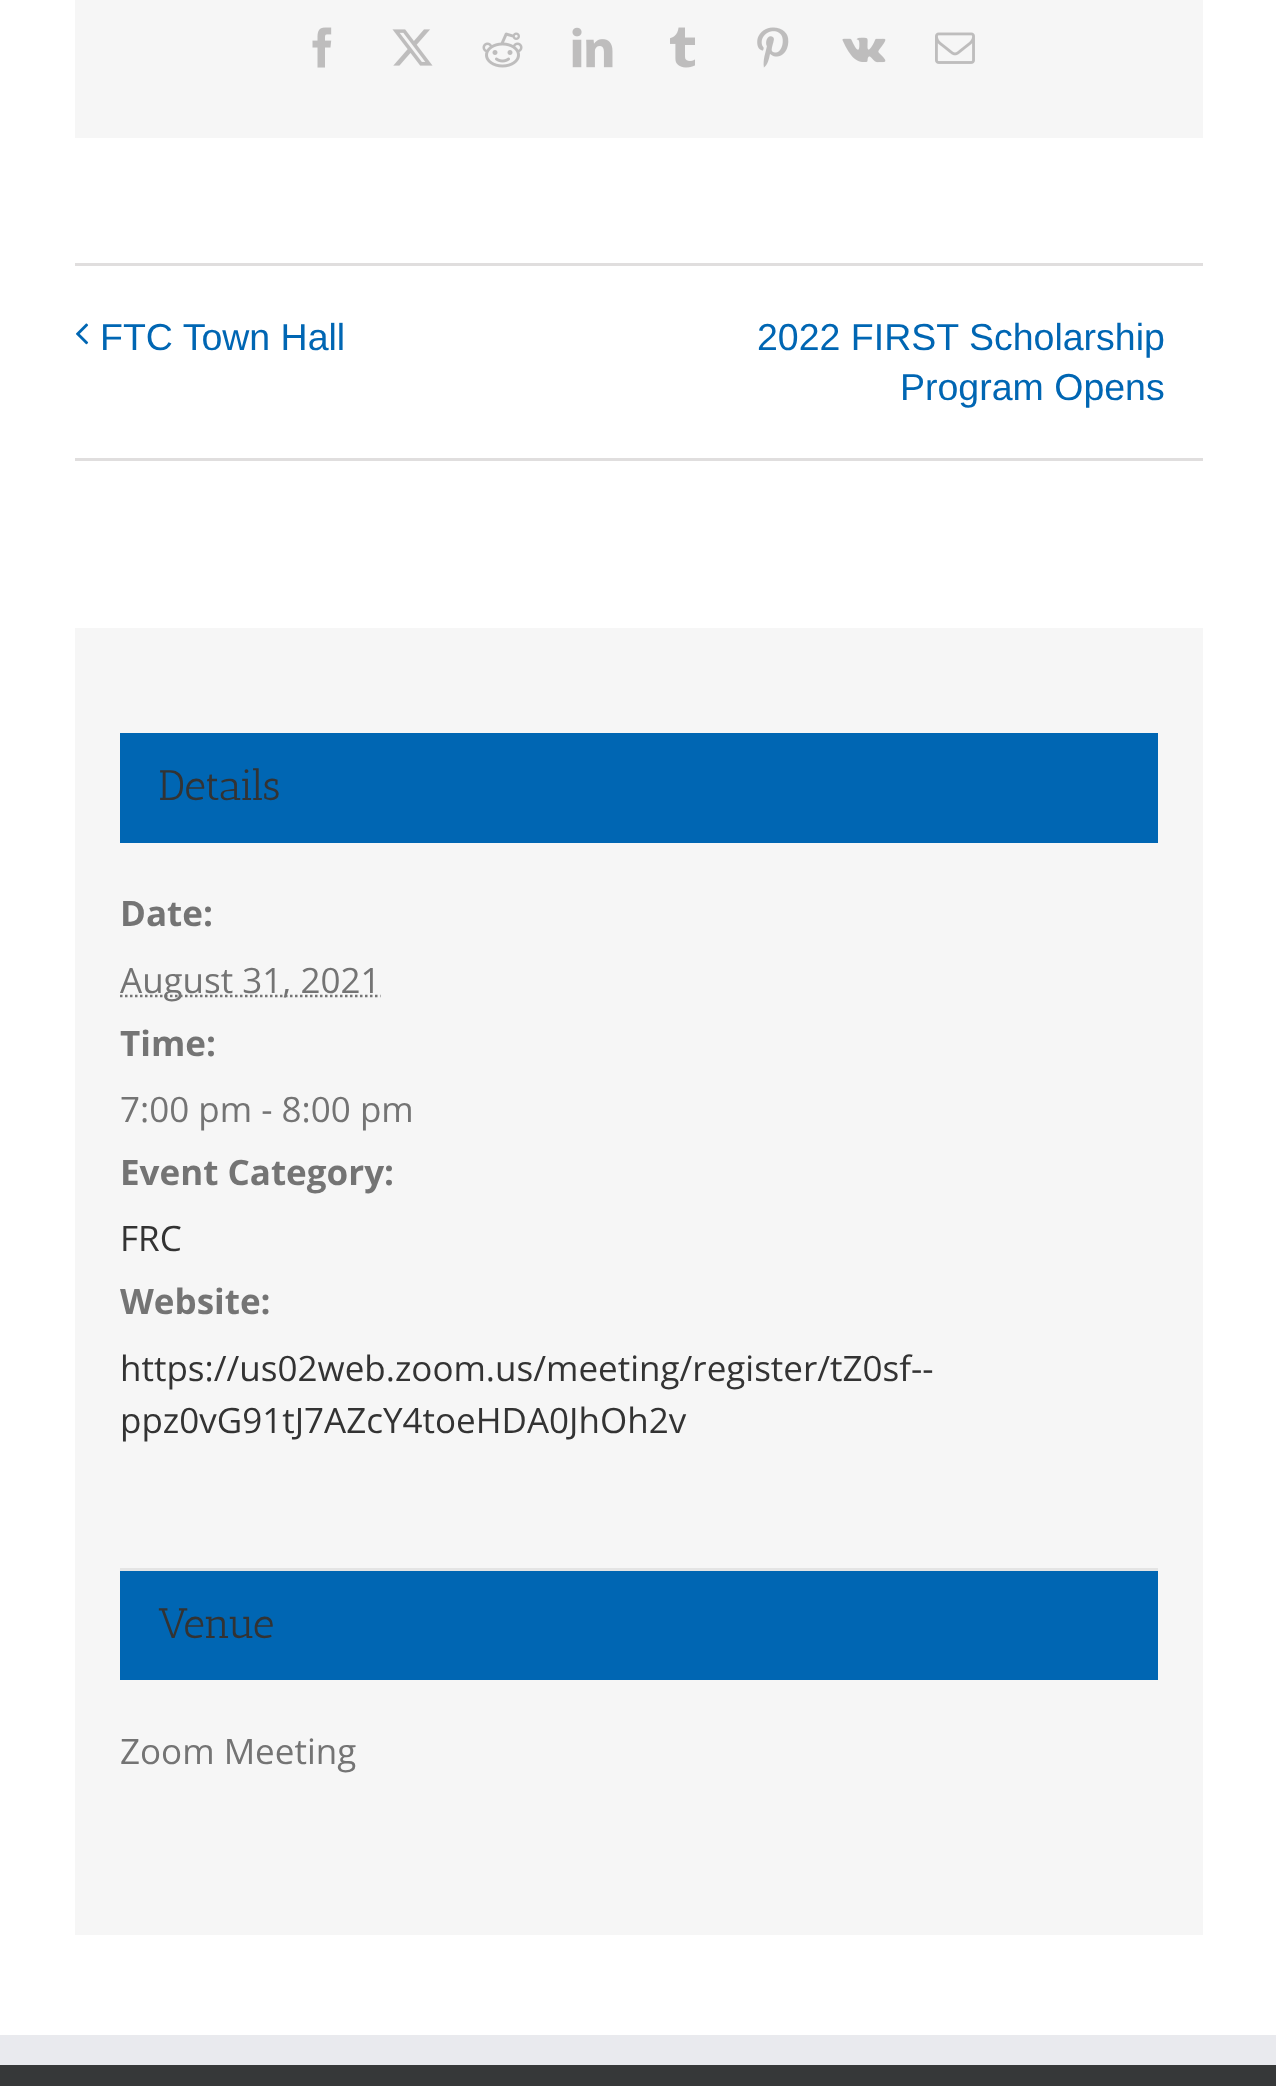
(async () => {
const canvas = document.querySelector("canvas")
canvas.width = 1276
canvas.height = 2086
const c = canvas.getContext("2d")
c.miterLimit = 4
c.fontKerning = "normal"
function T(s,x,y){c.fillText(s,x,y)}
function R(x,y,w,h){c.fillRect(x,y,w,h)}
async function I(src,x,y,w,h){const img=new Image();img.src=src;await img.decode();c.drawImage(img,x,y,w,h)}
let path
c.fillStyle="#fff"
R(0,0,1276,2086)
c.fillStyle="#f6f6f6"
R(75,0,1128,138)
await I("1.png",312,27,20,41)
await I("2.png",392,29,41,37)
await I("3.png",482,32,41,36)
await I("4.png",572,27,41,41)
await I("5.png",670,27,25,41)
await I("6.png",757,27,32,41)
await I("7.png",842,37,44,26)
await I("8.png",935,32,40,32)
c.fillStyle="#e0dede"
R(75,263,1128,3)
R(75,458,1128,3)
await I("9.png",76,323,13,22)
c.font="37.5px Liberation Sans"
c.fillStyle="#0066b3"
T("FTC Town Hall",100,350)
T("2022 FIRST Scholarship",757,350)
T("Program Opens",900,400)
c.fillStyle="#f6f6f6"
R(75,628,1128,1307)
c.fillStyle="#0066b3"
R(120,733,1038,110)
c.font="42.5px Antic Slab"
c.fillStyle="#333"
T("Details",158,800)
c.font="bold 35px Open Sans"
c.fillStyle="#747474"
T("Date:",120,926)
path = new Path2D("M120 996h260.5")
c.strokeStyle="#747474"
c.lineWidth=2.5
c.setLineDash([2.5,2.5])
c.stroke(path)
c.font="35px Open Sans"
T("August 31, 2021",120,993)
c.font="bold 35px Open Sans"
T("Time:",120,1056)
c.font="35px Open Sans"
T("7:00 pm - 8:00 pm",120,1122)
c.font="bold 35px Open Sans"
T("Event Category:",120,1185)
c.font="35px Open Sans"
c.fillStyle="#333"
T("FRC",120,1251)
c.font="bold 35px Open Sans"
c.fillStyle="#747474"
T("Website:",120,1314)
c.font="35px Open Sans"
c.fillStyle="#333"
T("https://us02web.zoom.us/meeting/register/tZ0sf--",120,1381)
T("ppz0vG91tJ7AZcY4toeHDA0JhOh2v",120,1433)
c.fillStyle="#e4e4e4"
R(120,1568,1038,3)
c.fillStyle="#0066b3"
R(120,1571,1038,109)
c.font="42.5px Antic Slab"
c.fillStyle="#333"
T("Venue",158,1638)
c.font="35px Open Sans"
c.fillStyle="#747474"
T("Zoom Meeting",120,1764)
c.fillStyle="#363839"
R(0,2065,1276,21)
c.fillStyle="#e9eaee"
R(0,2035,1276,30)
})()
